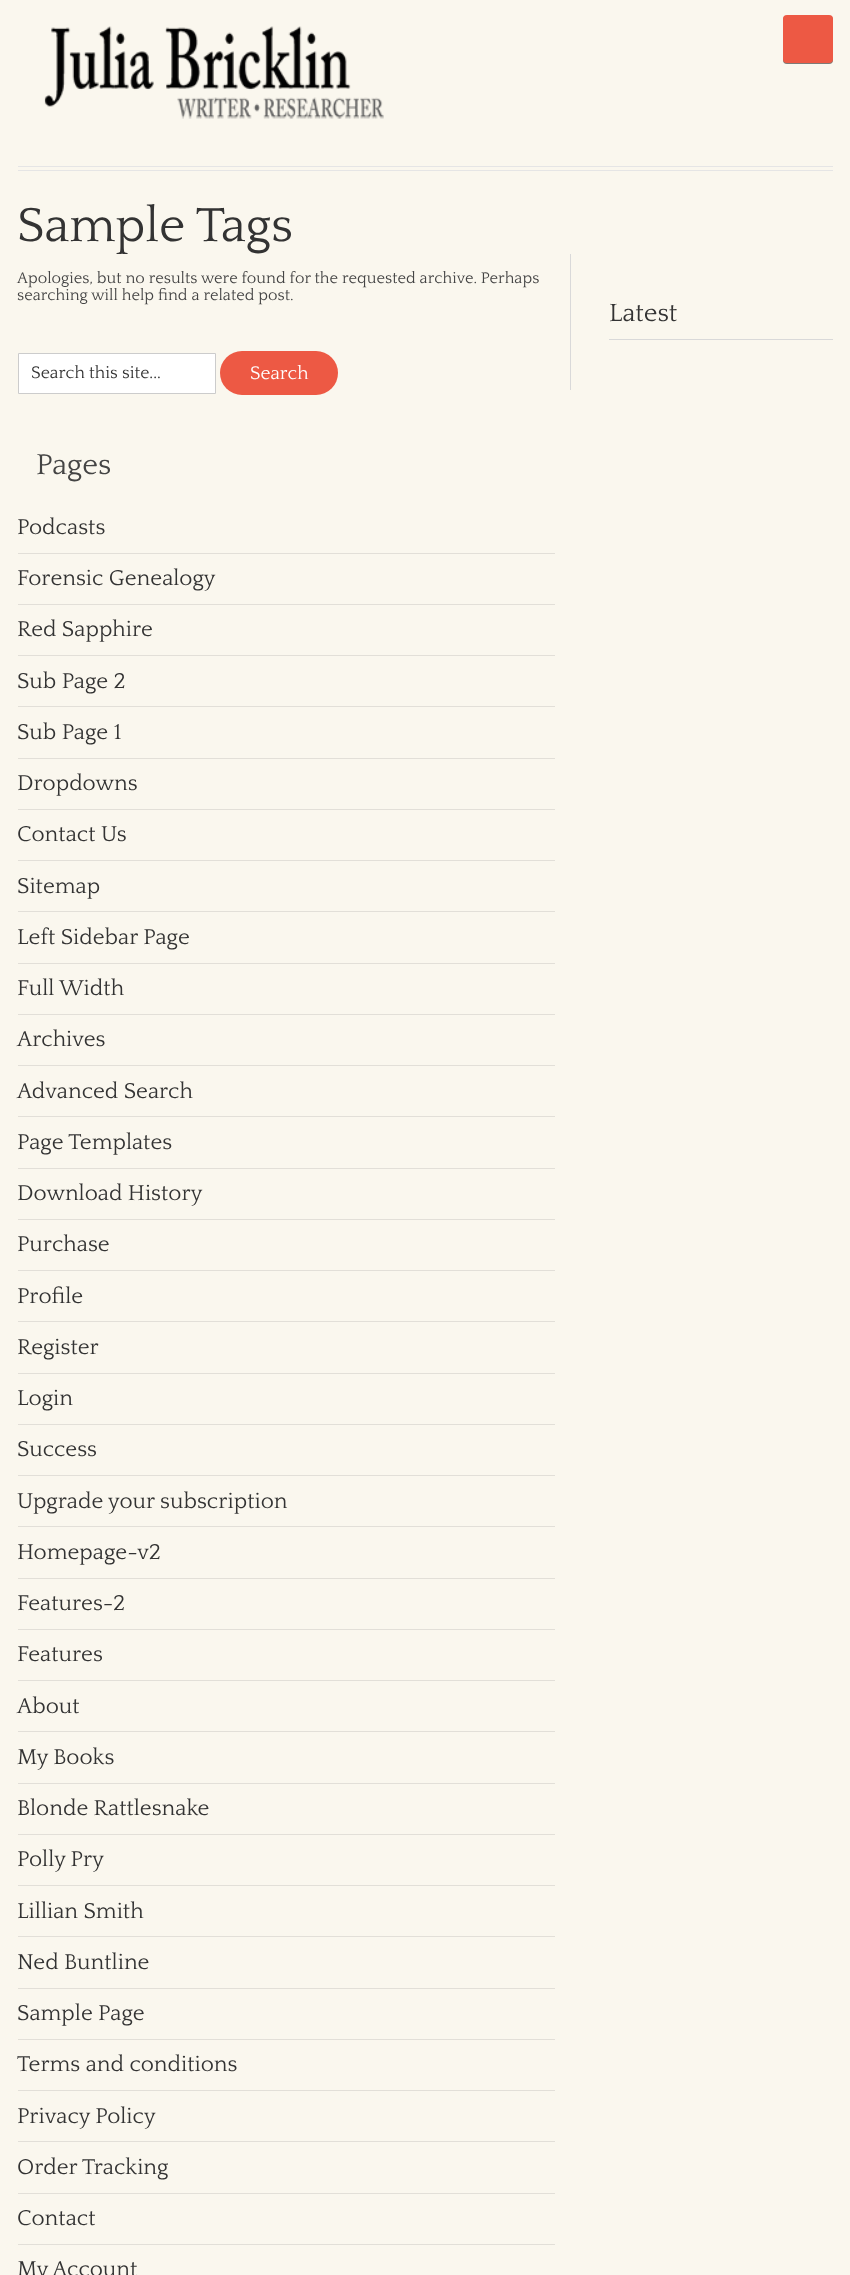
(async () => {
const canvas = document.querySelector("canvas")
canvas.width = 850
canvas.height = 2275
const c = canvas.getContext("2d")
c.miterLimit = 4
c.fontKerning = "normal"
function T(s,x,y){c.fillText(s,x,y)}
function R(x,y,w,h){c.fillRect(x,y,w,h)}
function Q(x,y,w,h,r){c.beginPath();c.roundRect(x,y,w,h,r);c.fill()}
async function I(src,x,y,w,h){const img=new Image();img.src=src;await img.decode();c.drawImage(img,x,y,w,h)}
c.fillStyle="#faf7ee"
R(0,0,850,2275)
c.fillStyle="#00000080"
c.filter="blur(0.5px)"
c.beginPath()
c.roundRect(783,16,50,48,4)
c.fill()
c.filter="none"
c.fillStyle="#ed5944"
Q(783,15,50,48,4)
c.fillStyle="#e5e5e5"
R(18,166,815,1)
R(18,170,815,1)
await I("1.png",44,26,340,93)
c.font="50px Quattrocento"
c.fillStyle="#333"
T("Sample Tags",17,241)
c.font="16.25px Quattrocento"
c.fillStyle="#444"
T("Apologies, but no results were found for the requested archive. Perhaps",17,283)
T("searching will help find a related post.",17,300)
c.fillStyle="#fff"
c.beginPath()
c.rect(18.5,353.5,197,40)
c.fill()
c.strokeStyle="#ccc"
c.stroke()
c.font="17.5px Quattrocento"
c.fillStyle="#333"
T("Search this site...",31,378)
c.fillStyle="#ed5944"
Q(220,351,118,44,22)
c.font="19px Quattrocento"
c.fillStyle="#fff"
T("Search",250,379)
c.font="30px Quattrocento"
c.fillStyle="#444"
T("Pages",36,474)
c.fillStyle="#e2dfd8"
R(18,553,537,1)
c.font="22.5px Quattrocento"
c.fillStyle="#333"
T("Podcasts",17,534)
c.fillStyle="#e2dfd8"
R(18,604,537,1)
c.fillStyle="#333"
T("Forensic Genealogy",17,585)
c.fillStyle="#e2dfd8"
R(18,655,537,1)
c.fillStyle="#333"
T("Red Sapphire",17,636)
c.fillStyle="#e2dfd8"
R(18,706,537,1)
c.fillStyle="#333"
T("Sub Page 2",17,688)
c.fillStyle="#e2dfd8"
R(18,758,537,1)
c.fillStyle="#333"
T("Sub Page 1",17,739)
c.fillStyle="#e2dfd8"
R(18,809,537,1)
c.fillStyle="#333"
T("Dropdowns",17,790)
c.fillStyle="#e2dfd8"
R(18,860,537,1)
c.fillStyle="#333"
T("Contact Us",17,841)
c.fillStyle="#e2dfd8"
R(18,911,537,1)
c.fillStyle="#333"
T("Sitemap",17,893)
c.fillStyle="#e2dfd8"
R(18,963,537,1)
c.fillStyle="#333"
T("Left Sidebar Page",17,944)
c.fillStyle="#e2dfd8"
R(18,1014,537,1)
c.fillStyle="#333"
T("Full Width",17,995)
c.fillStyle="#e2dfd8"
R(18,1065,537,1)
c.fillStyle="#333"
T("Archives",17,1046)
c.fillStyle="#e2dfd8"
R(18,1116,537,1)
c.fillStyle="#333"
T("Advanced Search",17,1098)
c.fillStyle="#e2dfd8"
R(18,1168,537,1)
c.fillStyle="#333"
T("Page Templates",17,1149)
c.fillStyle="#e2dfd8"
R(18,1219,537,1)
c.fillStyle="#333"
T("Download History",17,1200)
c.fillStyle="#e2dfd8"
R(18,1270,537,1)
c.fillStyle="#333"
T("Purchase",17,1251)
c.fillStyle="#e2dfd8"
R(18,1321,537,1)
c.fillStyle="#333"
T("Profile",17,1303)
c.fillStyle="#e2dfd8"
R(18,1373,537,1)
c.fillStyle="#333"
T("Register",17,1354)
c.fillStyle="#e2dfd8"
R(18,1424,537,1)
c.fillStyle="#333"
T("Login",17,1405)
c.fillStyle="#e2dfd8"
R(18,1475,537,1)
c.fillStyle="#333"
T("Success",17,1456)
c.fillStyle="#e2dfd8"
R(18,1526,537,1)
c.fillStyle="#333"
T("Upgrade your subscription",17,1508)
c.fillStyle="#e2dfd8"
R(18,1578,537,1)
c.fillStyle="#333"
T("Homepage-v2",17,1559)
c.fillStyle="#e2dfd8"
R(18,1629,537,1)
c.fillStyle="#333"
T("Features-2",17,1610)
c.fillStyle="#e2dfd8"
R(18,1680,537,1)
c.fillStyle="#333"
T("Features",17,1661)
c.fillStyle="#e2dfd8"
R(18,1731,537,1)
c.fillStyle="#333"
T("About",17,1713)
c.fillStyle="#e2dfd8"
R(18,1783,537,1)
c.fillStyle="#333"
T("My Books",17,1764)
c.fillStyle="#e2dfd8"
R(18,1834,537,1)
c.fillStyle="#333"
T("Blonde Rattlesnake",17,1815)
c.fillStyle="#e2dfd8"
R(18,1885,537,1)
c.fillStyle="#333"
T("Polly Pry",17,1866)
c.fillStyle="#e2dfd8"
R(18,1936,537,1)
c.fillStyle="#333"
T("Lillian Smith",17,1918)
c.fillStyle="#e2dfd8"
R(18,1988,537,1)
c.fillStyle="#333"
T("Ned Buntline",17,1969)
c.fillStyle="#e2dfd8"
R(18,2039,537,1)
c.fillStyle="#333"
T("Sample Page",17,2020)
c.fillStyle="#e2dfd8"
R(18,2090,537,1)
c.fillStyle="#333"
T("Terms and conditions",17,2071)
c.fillStyle="#e2dfd8"
R(18,2141,537,1)
c.fillStyle="#333"
T("Privacy Policy",17,2123)
c.fillStyle="#e2dfd8"
R(18,2193,537,1)
c.fillStyle="#333"
T("Order Tracking",17,2174)
c.fillStyle="#e2dfd8"
R(18,2244,537,1)
c.fillStyle="#333"
T("Contact",17,2225)
T("My Account",17,2276)
c.fillStyle="#d9d9d9"
R(570,254,1,136)
R(609,339,224,1)
c.font="26px Quattrocento"
c.fillStyle="#333"
T("Latest",609,321)
})()
